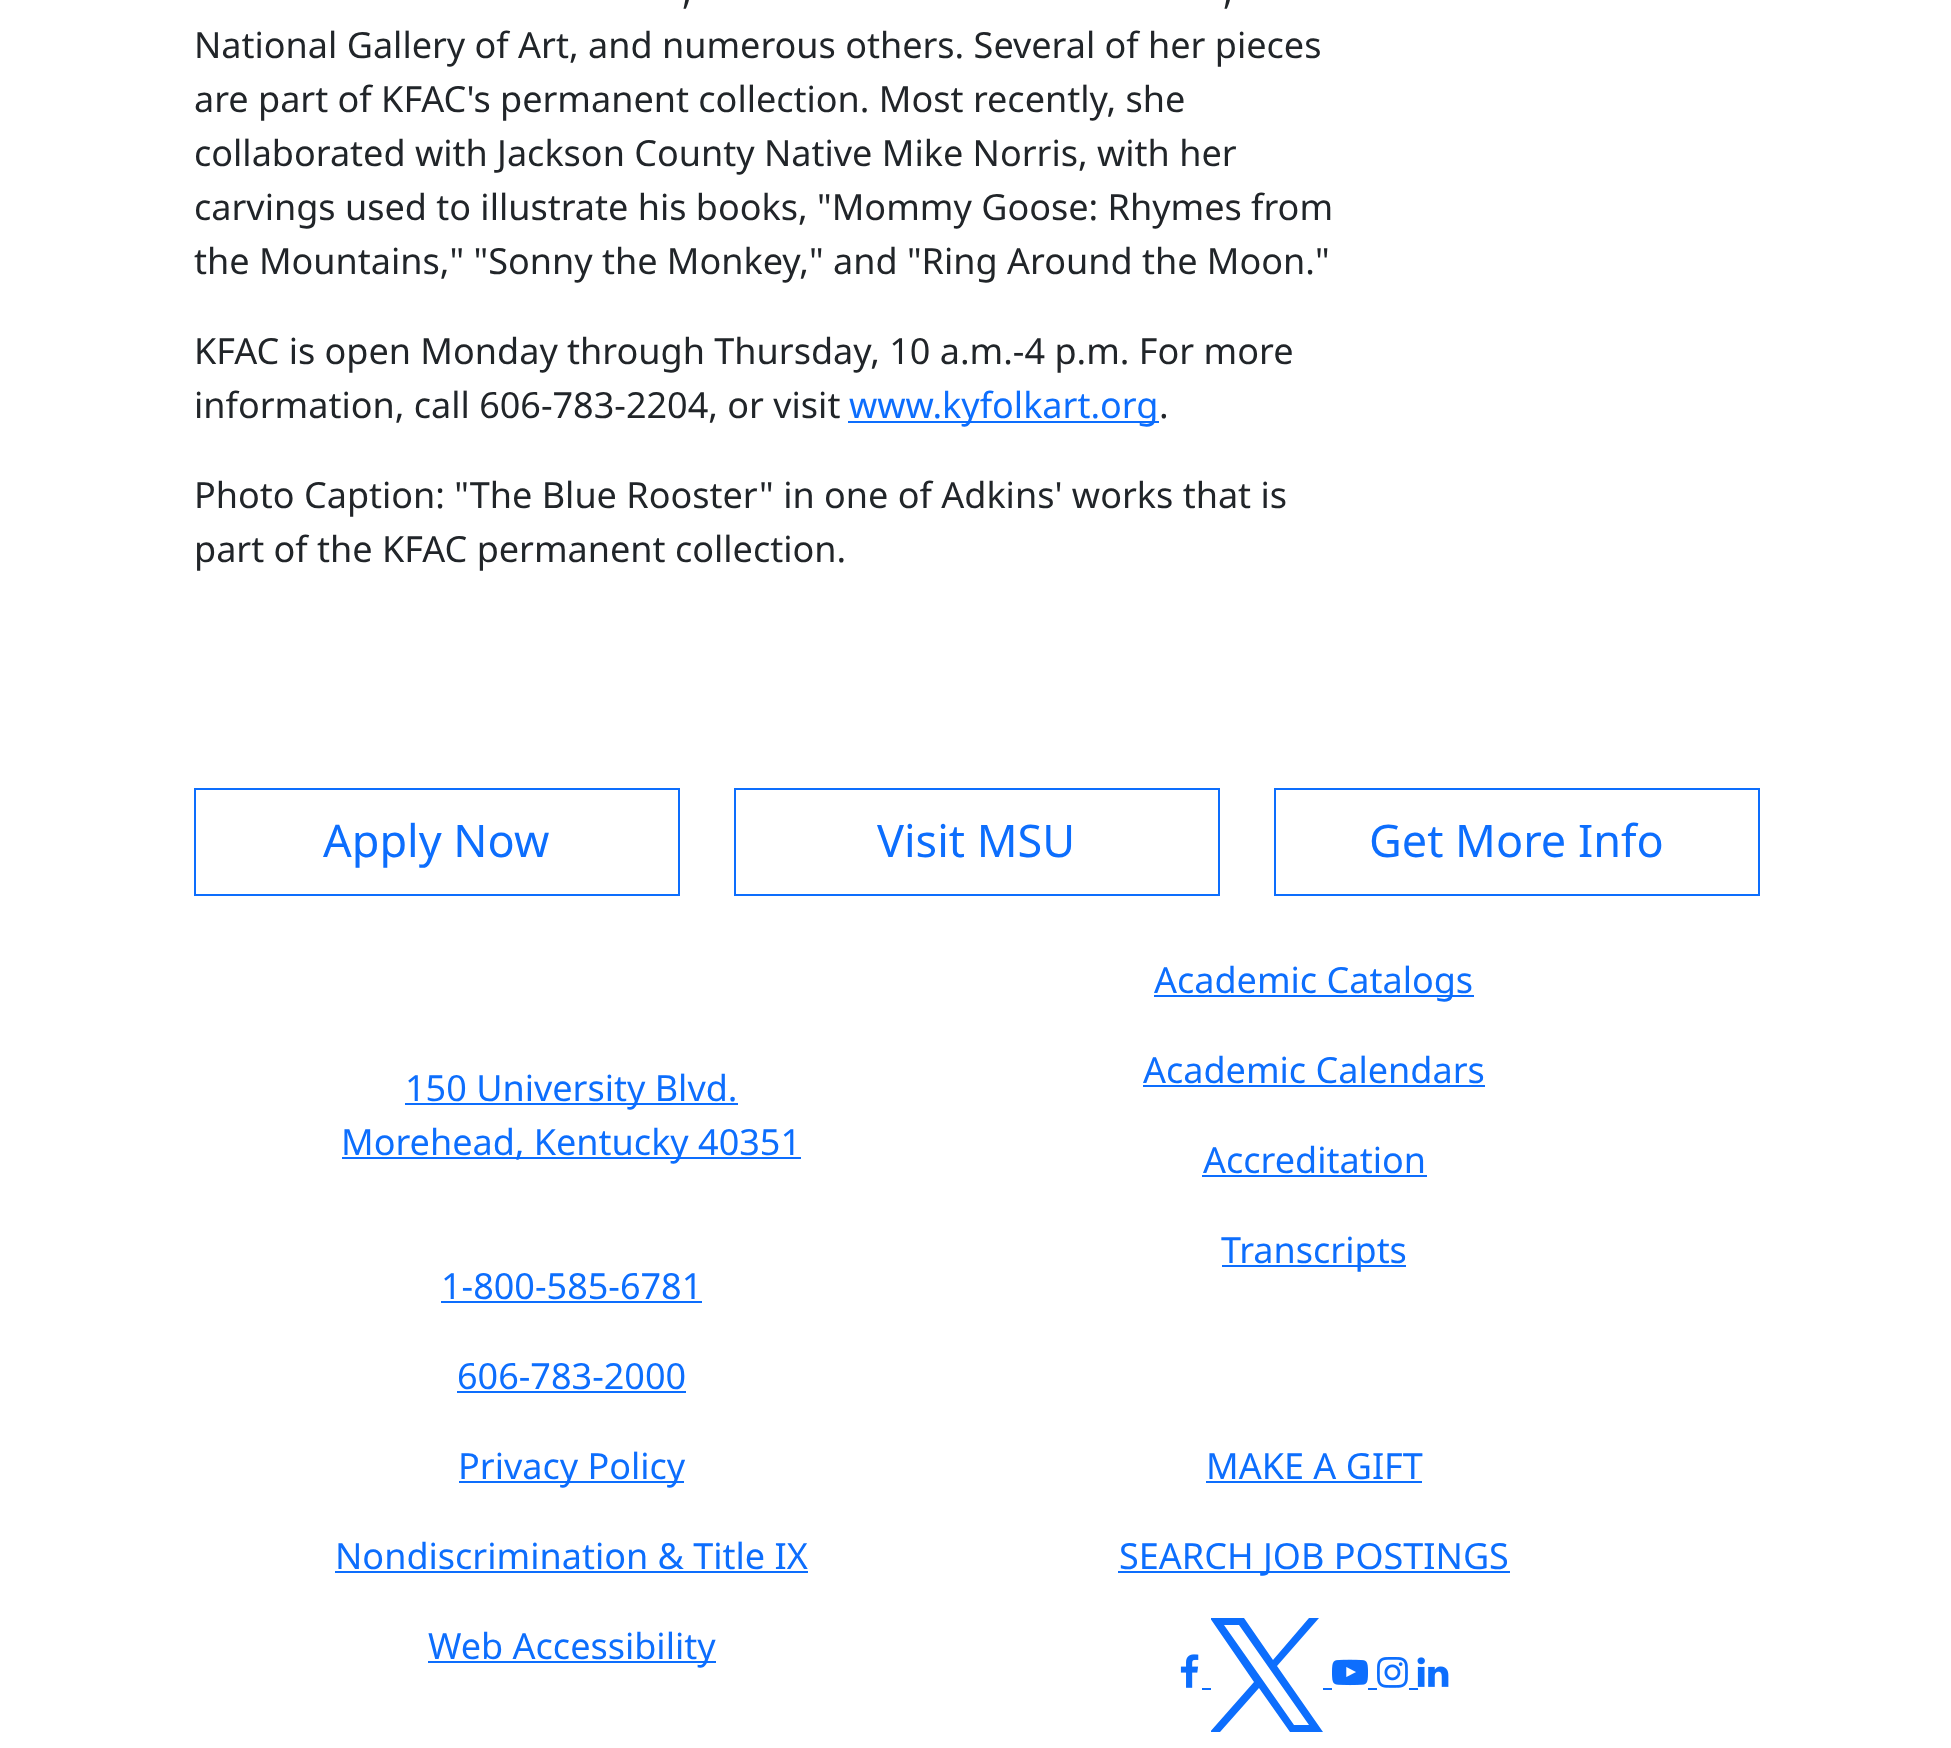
(async () => {
const canvas = document.querySelector("canvas")
canvas.width = 1951
canvas.height = 1748
const c = canvas.getContext("2d")
c.miterLimit = 4
c.fontKerning = "normal"
function T(s,x,y){c.fillText(s,x,y)}
function R(x,y,w,h){c.fillRect(x,y,w,h)}
async function I(src,x,y,w,h){const img=new Image();img.src=src;await img.decode();c.drawImage(img,x,y,w,h)}
let path
c.fillStyle="#fff"
R(0,0,1951,1748)
c.font="36px Noto Sans"
c.fillStyle="#212529"
T(",",682,4)
T(",",1223,4)
T("National Gallery of Art, and numerous others. Several of her pieces",194,58)
T("are part of KFAC's permanent collection. Most recently, she",194,112)
T("collaborated with Jackson County Native Mike Norris, with her",194,166)
T("carvings used to illustrate his books, \"Mommy Goose: Rhymes from",194,220)
T("the Mountains,\" \"Sonny the Monkey,\" and \"Ring Around the Moon.\"",194,274)
T("KFAC is open Monday through Thursday, 10 a.m.-4 p.m. For more",194,364)
T("information, call 606-783-2204, or visit",194,418)
c.fillStyle="#0d6efd"
R(848,421,311,2)
T("www.kyfolkart.org",849,418)
c.fillStyle="#212529"
T(".",1159,418)
T("Photo Caption: \"The Blue Rooster\" in one of Adkins' works that is",194,508)
T("part of the KFAC permanent collection.",194,562)
c.strokeStyle="#0d6efd"
c.lineWidth=2
c.strokeRect(195,789,484,106)
c.font="45px Noto Sans"
c.fillStyle="#0d6efd"
T("Apply Now",323,857)
c.strokeRect(735,789,484,106)
T("Visit MSU",877,857)
c.strokeRect(1275,789,484,106)
T("Get More Info",1369,857)
R(405,1103,333,2)
c.font="36px Noto Sans"
T("150 University Blvd.",405,1101)
R(342,1157,459,2)
T("Morehead, Kentucky 40351",341,1155)
T("1-800-585-6781",441,1299)
R(441,1301,261,2)
T("606-783-2000",457,1389)
R(457,1391,229,2)
R(1154,995,320,2)
T("Academic Catalogs",1154,993)
T("Academic Calendars",1143,1083)
R(1143,1085,342,2)
T("Accreditation",1203,1173)
R(1202,1175,225,2)
R(1222,1265,184,2)
T("Transcripts",1221,1263)
R(459,1481,225,2)
T("Privacy Policy",458,1479)
T("Nondiscrimination & Title IX",335,1569)
R(335,1571,473,2)
R(428,1661,288,2)
T("Web Accessibility",428,1659)
T("MAKE A GIFT",1206,1479)
R(1206,1481,216,2)
R(1118,1571,392,2)
T("SEARCH JOB POSTINGS",1119,1569)
await I("1.png",1180,1654,19,34)
R(1202,1688,9,2)
c.save()
c.beginPath()
c.rect(1211,1618,112,115)
c.clip()
path = new Path2D("M1277 1666l42-48h-10l-36 42l-29-42h-34l44 64l-44 50h10l39-44l31 44h33zm-13 16l-40-57h15l70 100h-15z")
c.fill(path)
c.restore()
R(1323,1688,9,2)
await I("2.png",1332,1659,36,27)
R(1368,1688,9,2)
await I("3.png",1377,1657,31,31)
R(1409,1688,9,2)
await I("4.png",1417,1657,32,30)
})()
